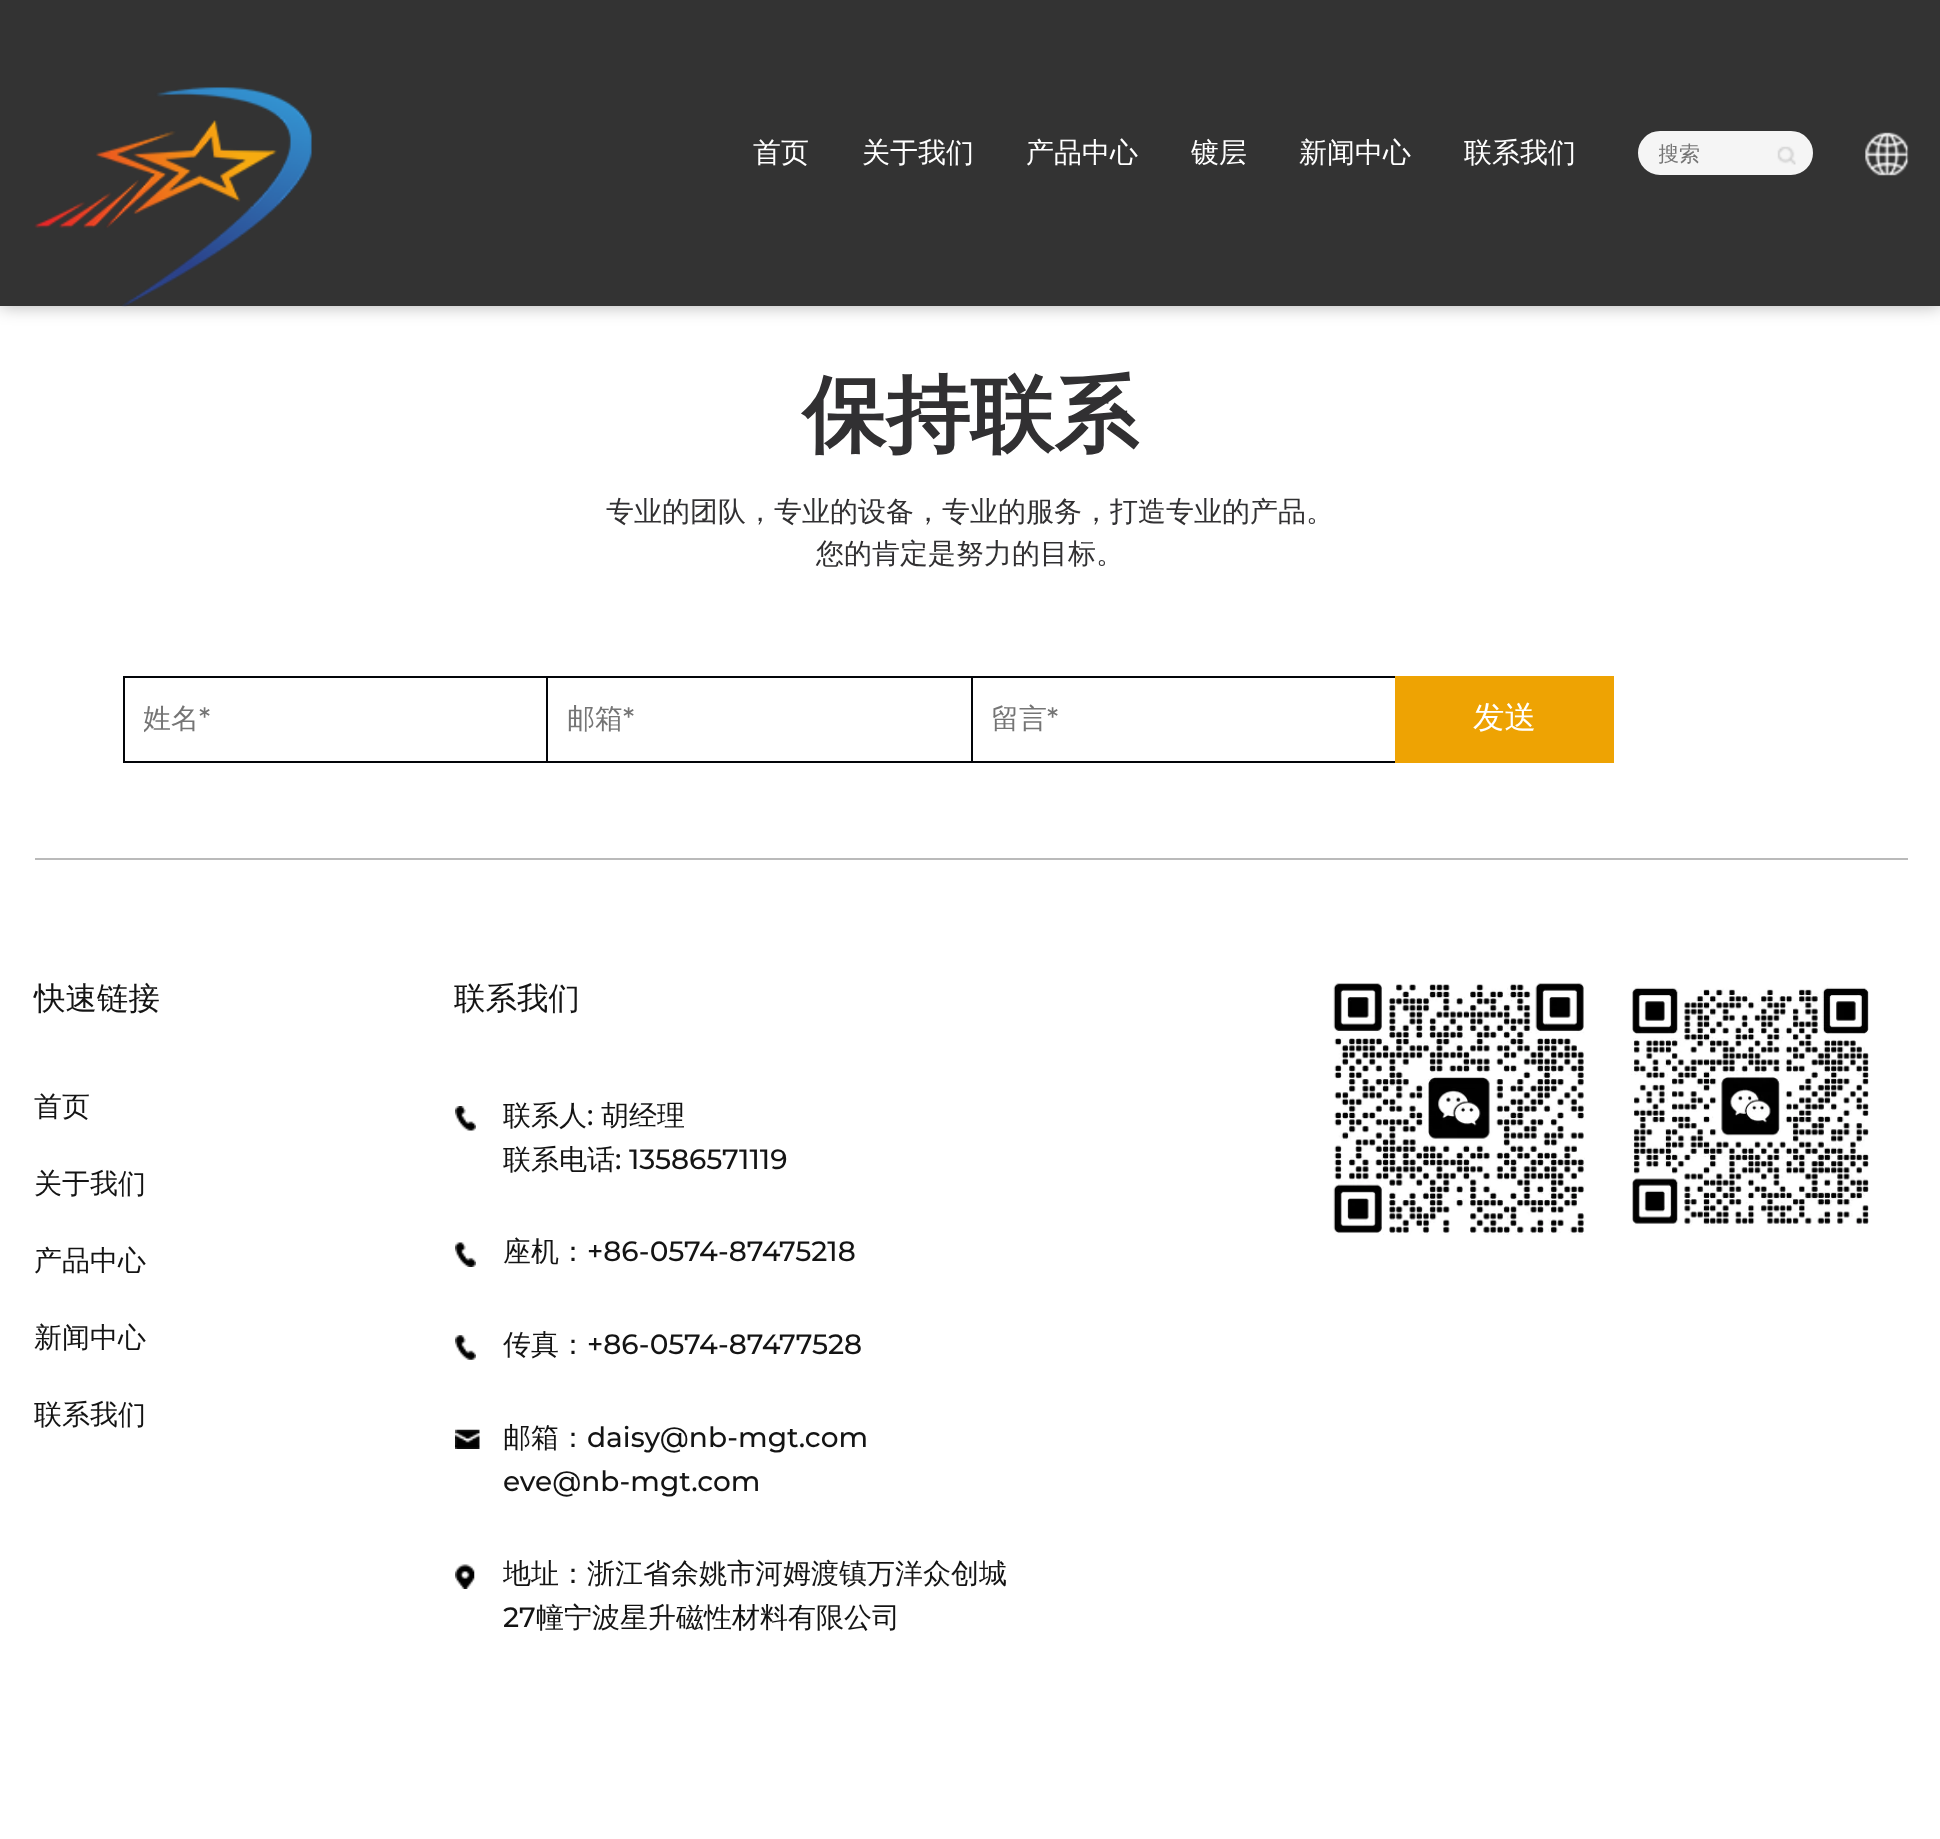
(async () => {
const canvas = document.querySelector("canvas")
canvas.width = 1940
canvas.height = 1839
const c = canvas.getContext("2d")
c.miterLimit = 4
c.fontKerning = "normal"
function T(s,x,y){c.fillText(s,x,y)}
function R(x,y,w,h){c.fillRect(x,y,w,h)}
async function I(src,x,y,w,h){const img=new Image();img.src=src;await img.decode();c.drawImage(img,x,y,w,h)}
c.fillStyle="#fff"
R(0,0,1940,1839)
c.fillStyle="#0000004d"
c.filter="blur(9px)"
c.beginPath()
c.rect(0,0,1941,306)
c.fill()
c.filter="none"
c.fillStyle="#333"
R(0,0,1940,306)
await I("1.png",34,87,278,220)
c.font="500 28px WenQuanYi Zen Hei"
c.fillStyle="#fff"
T("首页",753,162)
T("关于我们",862,162)
T("产品中心",1026,162)
T("镀层",1191,162)
T("新闻中心",1299,162)
T("联系我们",1464,162)
c.fillStyle="#f5f5f5"
c.beginPath()
c.roundRect(1640,133,171,40,20)
c.fill()
c.strokeStyle="#f5f5f5"
c.lineWidth=4
c.stroke()
c.save()
c.beginPath()
c.rect(1659,140,151,30)
c.clip()
c.font="500 21px WenQuanYi Zen Hei"
c.fillStyle="#757575"
T("搜索",1658,161)
c.restore()
await I("2.png",1777,146,19,19)
await I("3.png",1865,132,44,44)
c.fillStyle="#bababa"
R(35,858,1873,2)
c.font="bold 84px WenQuanYi Zen Hei"
c.fillStyle="#313032"
T("保持联系",802,444)
c.font="500 28px WenQuanYi Zen Hei"
T("专业的团队，专业的设备，专业的服务，打造专业的产品。",606,521)
T("您的肯定是努力的目标。",816,563)
c.strokeStyle="#030509"
c.lineWidth=2
c.strokeRect(124,677,433,85)
c.save()
c.beginPath()
c.rect(144,702,413,37)
c.clip()
c.fillStyle="#757575"
T("姓名",143,728)
c.restore()
c.font="500 28px Montserrat"
c.fillStyle="#757575"
T("*",199,728)
c.fillStyle="#fff"
R(556,678,2,83)
c.strokeRect(547,677,434,85)
c.font="500 28px WenQuanYi Zen Hei"
c.fillStyle="#757575"
T("邮箱",567,728)
c.font="500 28px Montserrat"
T("*",623,728)
c.fillStyle="#fff"
R(980,678,2,83)
c.strokeRect(972,677,434,85)
c.font="500 28px WenQuanYi Zen Hei"
c.fillStyle="#757575"
T("留言",991,728)
c.font="500 28px Montserrat"
T("*",1047,728)
c.fillStyle="#eea303"
R(1395,676,219,87)
c.font="500 31.5px WenQuanYi Zen Hei"
c.fillStyle="#fff"
T("发送",1473,728)
c.fillStyle="#141414"
T("快速链接",34,1009)
c.font="500 28px WenQuanYi Zen Hei"
T("首页",34,1116)
T("关于我们",34,1193)
T("产品中心",34,1270)
T("新闻中心",34,1347)
T("联系我们",34,1424)
c.font="500 31.5px WenQuanYi Zen Hei"
T("联系我们",454,1009)
await I("4.png",455,1106,21,25)
c.font="500 28px WenQuanYi Zen Hei"
T("联系人",503,1125)
c.font="500 28px Montserrat"
T(":",587,1125)
c.font="500 28px WenQuanYi Zen Hei"
T("胡经理",601,1125)
T("联系电话",503,1169)
c.font="500 28px Montserrat"
T(": 13586571119",615,1169)
await I("5.png",455,1242,21,25)
c.font="500 28px WenQuanYi Zen Hei"
T("座机：",503,1261)
c.font="500 28px Montserrat"
T("+86-0574-87475218",587,1261)
await I("6.png",455,1335,21,25)
c.font="500 28px WenQuanYi Zen Hei"
T("传真：",503,1354)
c.font="500 28px Montserrat"
T("+86-0574-87477528",587,1354)
await I("7.png",455,1429,25,20)
c.font="500 28px WenQuanYi Zen Hei"
T("邮箱：",503,1447)
c.font="500 28px Montserrat"
T("daisy@nb-mgt.com",587,1447)
T("eve@nb-mgt.com",503,1491)
await I("8.png",455,1564,20,25)
c.font="500 28px WenQuanYi Zen Hei"
T("地址：浙江省余姚市河姆渡镇万洋众创城",503,1583)
c.font="500 28px Montserrat"
T("27",503,1627)
c.font="500 28px WenQuanYi Zen Hei"
T("幢宁波星升磁性材料有限公司",536,1627)
await I("9.png",1333,982,252,253)
await I("10.png",1631,985,238,242)
})()
